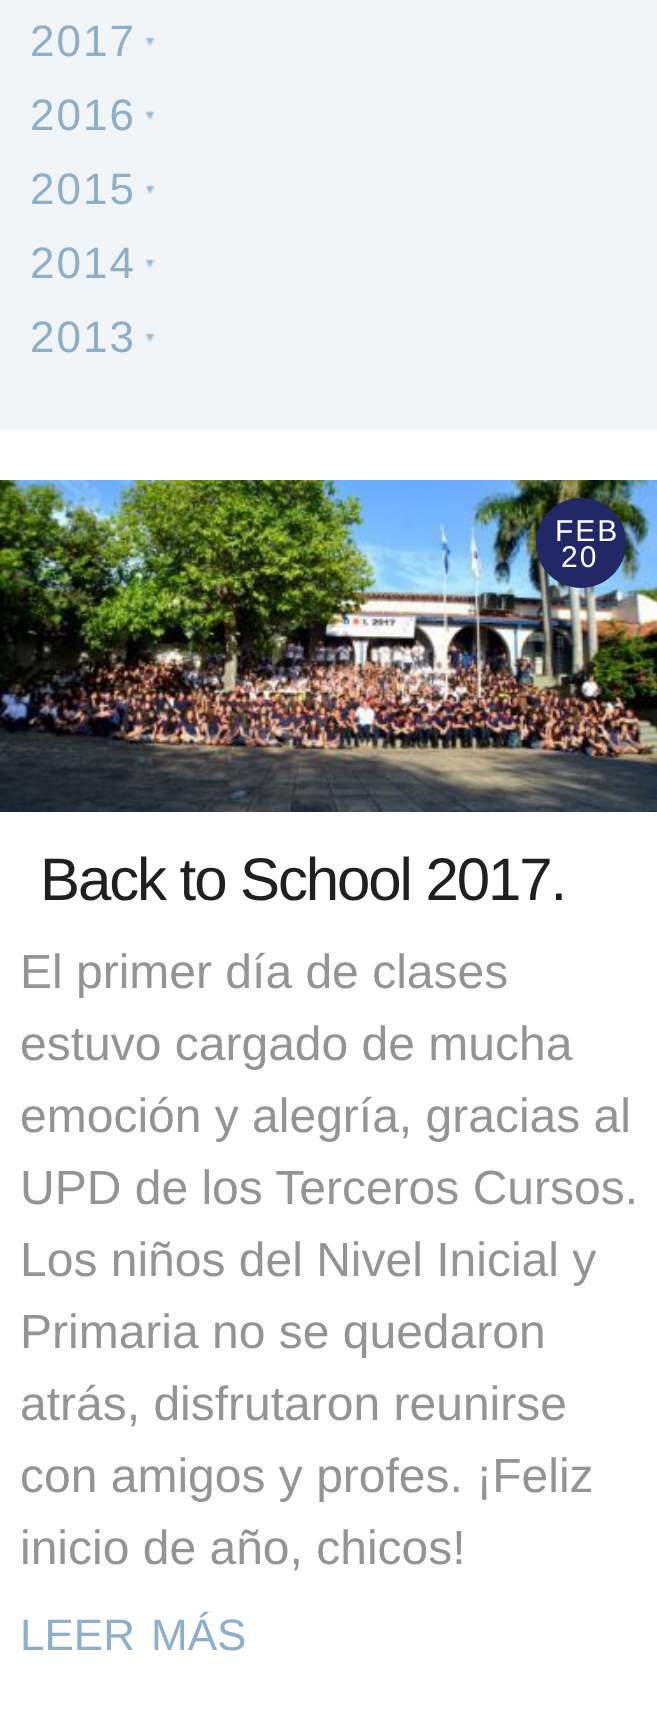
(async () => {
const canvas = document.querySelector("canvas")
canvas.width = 657
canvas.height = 1720
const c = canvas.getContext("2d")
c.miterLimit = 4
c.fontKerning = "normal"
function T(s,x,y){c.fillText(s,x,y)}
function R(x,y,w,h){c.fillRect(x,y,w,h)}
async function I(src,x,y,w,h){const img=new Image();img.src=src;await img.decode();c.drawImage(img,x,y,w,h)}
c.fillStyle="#fff"
R(0,0,657,1720)
c.fillStyle="#f1f5f8"
R(0,0,657,430)
c.letterSpacing="2px"
c.font="44px Liberation Sans"
c.fillStyle="#8eafc7"
T("2017",30,56)
await I("1.png",145,37,10,10)
T("2016",30,130)
await I("1.png",145,111,10,10)
T("2015",30,204)
await I("1.png",145,185,10,10)
T("2014",30,278)
await I("1.png",145,259,10,10)
T("2013",30,352)
await I("1.png",145,333,10,10)
await I("2.png",0,480,657,332)
c.fillStyle="#212865"
c.beginPath()
c.arc(581,543,45,0,7)
c.fill()
c.font="30px Liberation Sans"
c.fillStyle="#fff"
T("FEB",555,541)
T("20",561,567)
c.letterSpacing="-2.1px"
c.font="60px Liberation Sans"
c.fillStyle="#202020"
T("Back to School 2017.",40,900)
c.letterSpacing="0px"
c.font="48px Liberation Sans"
c.fillStyle="#949494"
T("El primer día de clases",20,988)
T("estuvo cargado de mucha",20,1060)
T("emoción y alegría, gracias al",20,1132)
T("UPD de los Terceros Cursos.",20,1204)
T("Los niños del Nivel Inicial y",20,1276)
T("Primaria no se quedaron",20,1348)
T("atrás, disfrutaron reunirse",20,1420)
T("con amigos y profes. ¡Feliz",20,1492)
T("inicio de año, chicos!",20,1564)
c.font="44px Liberation Sans"
c.fillStyle="#8eafc7"
T("LEER",20,1650)
T("MÁS",151,1650)
})()
